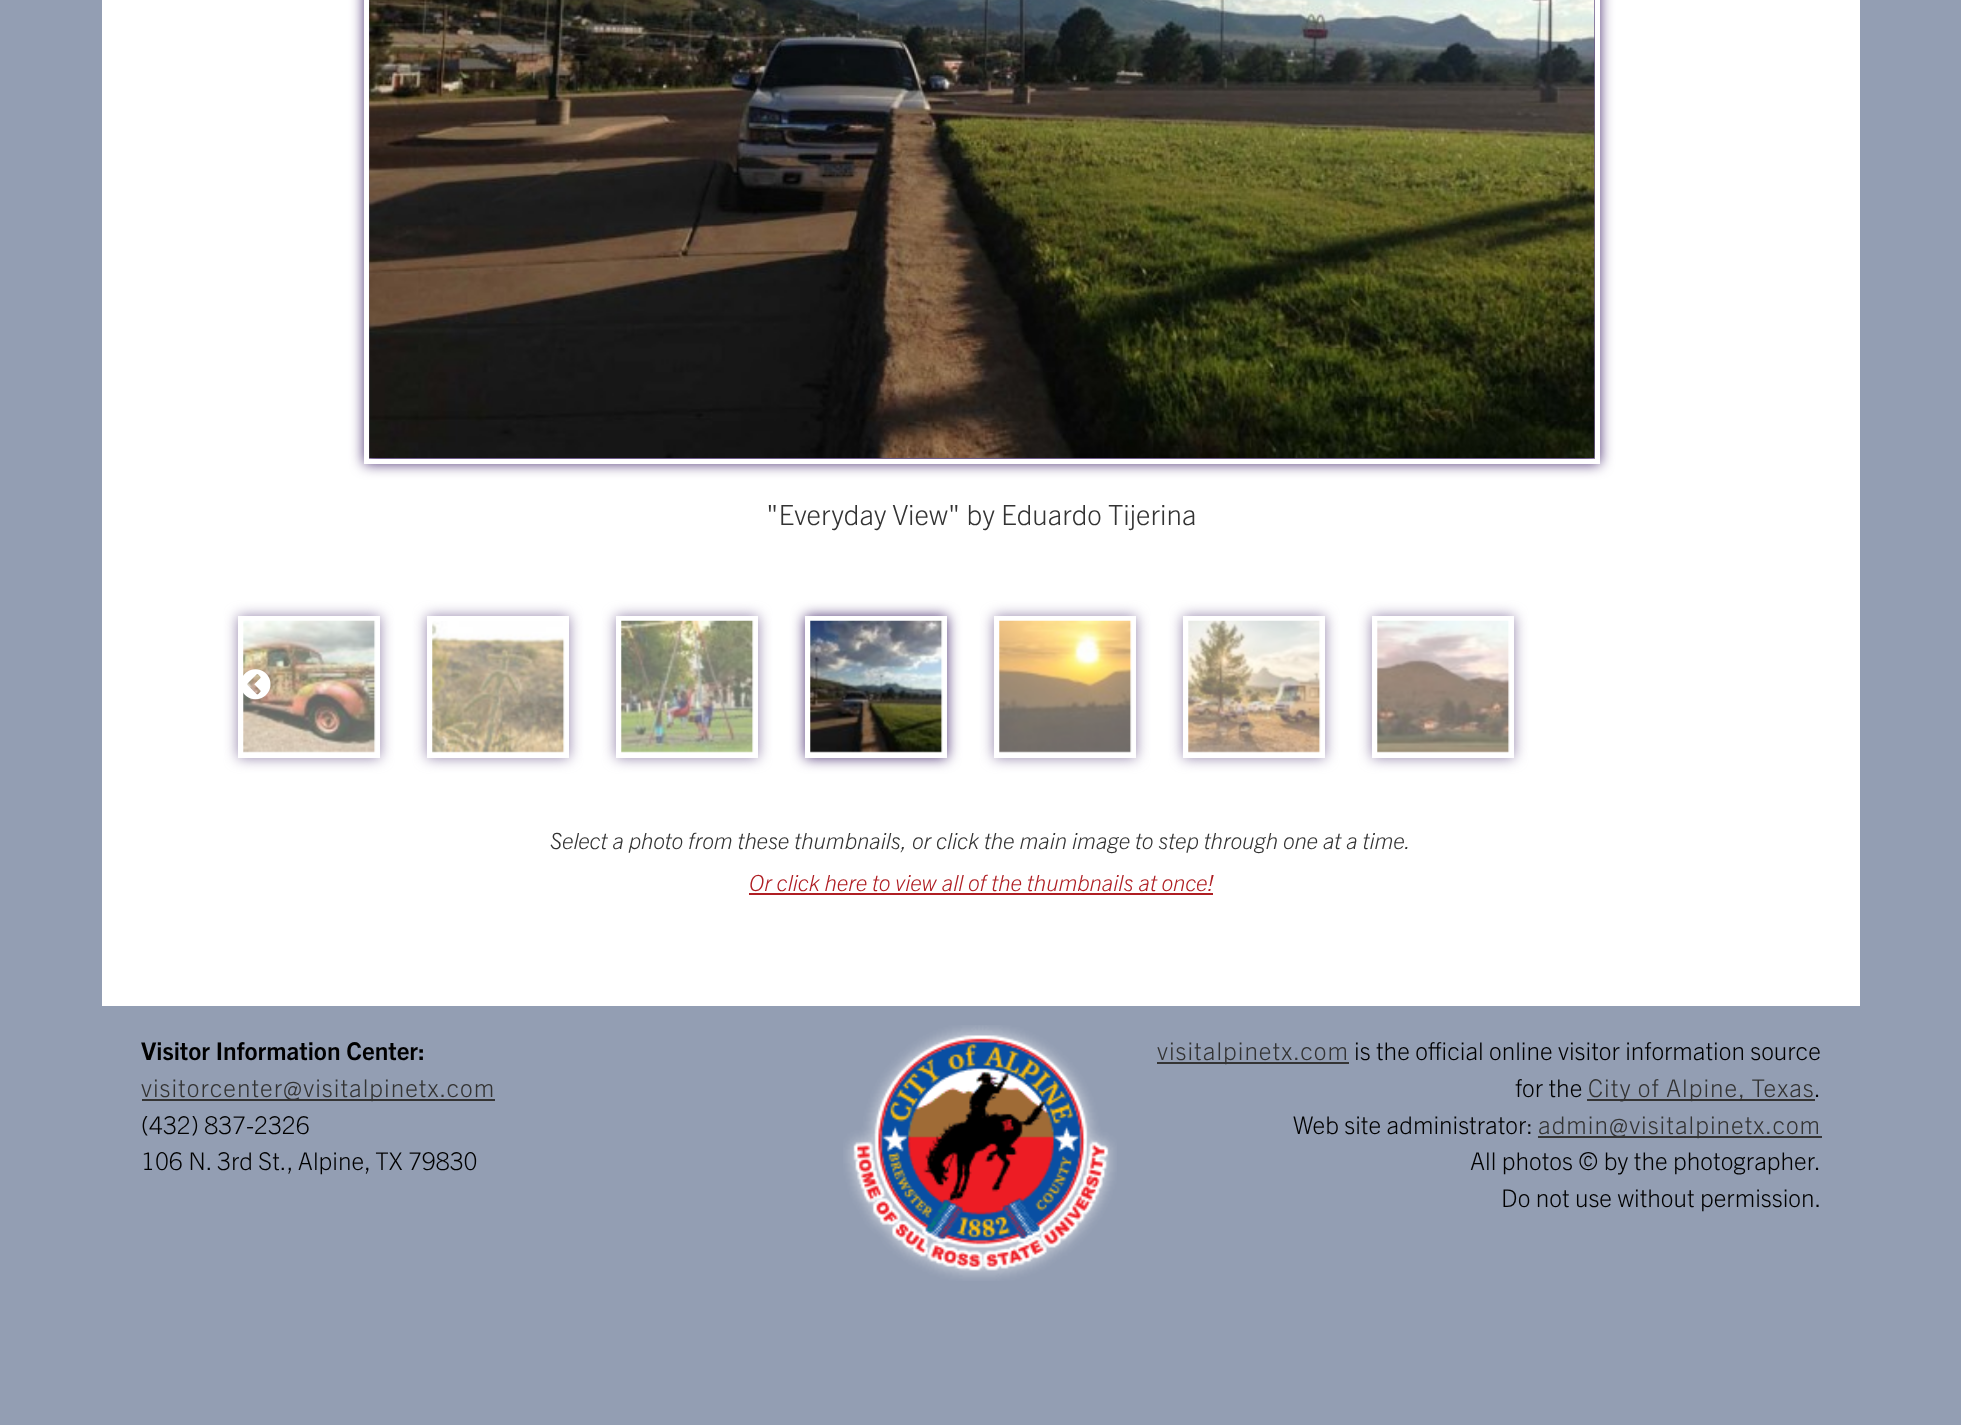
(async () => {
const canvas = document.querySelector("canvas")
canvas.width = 1961
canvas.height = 1425
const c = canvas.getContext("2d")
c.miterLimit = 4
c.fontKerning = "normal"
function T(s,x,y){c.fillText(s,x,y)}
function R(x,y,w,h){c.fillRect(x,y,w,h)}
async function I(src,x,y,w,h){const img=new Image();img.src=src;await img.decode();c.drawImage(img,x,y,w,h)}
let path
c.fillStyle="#939eb3"
R(0,0,1961,1425)
c.fillStyle="#fff"
R(102,0,1758,1006)
c.fillStyle="#4b3072"
c.filter="blur(7px)"
c.beginPath()
c.rect(364,-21,1236,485)
c.fill()
c.filter="none"
c.strokeStyle="#fff"
c.lineWidth=5
c.strokeRect(366.5,-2.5,1231,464)
await I("1.png",369,0,1226,458)
c.font="300 28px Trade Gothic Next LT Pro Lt"
c.fillStyle="#333"
T("\"Everyday View\" by Eduardo Tijerina",766,525)
c.save()
path = new Path2D("M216 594h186v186h-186zm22 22h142v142h-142z")
c.clip(path,"evenodd")
c.fillStyle="#9383aa"
c.filter="blur(7px)"
c.beginPath()
c.rect(238,616,142,142)
c.fill()
c.filter="none"
c.restore()
c.strokeRect(240.5,618.5,137,137)
await I("2.png",243,620,133,133)
c.save()
path = new Path2D("M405 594h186v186h-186zm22 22h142v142h-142z")
c.clip(path,"evenodd")
c.fillStyle="#9383aa"
c.filter="blur(7px)"
c.beginPath()
c.rect(427,616,142,142)
c.fill()
c.filter="none"
c.restore()
c.strokeRect(429.5,618.5,137,137)
await I("3.png",432,621,133,132)
c.save()
path = new Path2D("M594 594h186v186h-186zm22 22h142v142h-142z")
c.clip(path,"evenodd")
c.fillStyle="#9383aa"
c.filter="blur(7px)"
c.beginPath()
c.rect(616,616,142,142)
c.fill()
c.filter="none"
c.restore()
c.strokeRect(618.5,618.5,137,137)
await I("4.png",621,620,133,133)
c.save()
path = new Path2D("M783 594h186v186h-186zm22 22h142v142h-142z")
c.clip(path,"evenodd")
c.fillStyle="#4b3072"
c.filter="blur(7px)"
c.beginPath()
c.rect(805,616,142,142)
c.fill()
c.filter="none"
c.restore()
c.strokeRect(807.5,618.5,137,137)
await I("5.png",810,620,133,133)
c.save()
path = new Path2D("M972 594h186v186h-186zm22 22h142v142h-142z")
c.clip(path,"evenodd")
c.fillStyle="#9383aa"
c.filter="blur(7px)"
c.beginPath()
c.rect(994,616,142,142)
c.fill()
c.filter="none"
c.restore()
c.strokeRect(996.5,618.5,137,137)
await I("6.png",999,620,133,133)
c.save()
path = new Path2D("M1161 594h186v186h-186zm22 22h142v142h-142z")
c.clip(path,"evenodd")
c.fillStyle="#9383aa"
c.filter="blur(7px)"
c.beginPath()
c.rect(1183,616,142,142)
c.fill()
c.filter="none"
c.restore()
c.strokeRect(1185.5,618.5,137,137)
await I("7.png",1188,620,133,133)
c.save()
path = new Path2D("M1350 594h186v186h-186zm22 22h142v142h-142z")
c.clip(path,"evenodd")
c.fillStyle="#9383aa"
c.filter="blur(7px)"
c.beginPath()
c.rect(1372,616,142,142)
c.fill()
c.filter="none"
c.restore()
c.strokeRect(1374.5,618.5,137,137)
await I("8.png",1377,620,133,133)
await I("9.png",243,669,28,31)
c.font="italic 300 22.4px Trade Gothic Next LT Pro"
T("Select a photo from these thumbnails, or click the main image to step through one at a time.",550,849)
c.fillStyle="#af1e23"
T("Or click here to view all of the thumbnails at once!",749,891)
R(749,893,464,2)
await I("10.png",843,1025,274,256)
c.font="bold 24.5px Trade Gothic Next LT Pro"
c.fillStyle="#000"
T("Visitor Information Center:",141,1060)
c.fillStyle="#343434"
R(142,1099,353,2)
c.letterSpacing="1px"
c.font="300 24.5px Trade Gothic Next LT Pro Lt"
c.fillStyle="#333"
T("visitorcenter@visitalpinetx.com",141,1097)
c.letterSpacing="0px"
c.fillStyle="#000"
T("(432) 837-2326",141,1134)
T("106 N. 3rd St., Alpine, TX 79830",141,1170)
c.fillStyle="#343434"
R(1157,1062,192,2)
c.letterSpacing="1px"
c.fillStyle="#333"
T("visitalpinetx.com",1157,1060)
c.letterSpacing="0px"
c.fillStyle="#000"
T("is the official online visitor information source",1354,1060)
T("for the",1515,1097)
c.fillStyle="#343434"
R(1587,1099,228,2)
c.letterSpacing="1px"
c.fillStyle="#333"
T("City of Alpine, Texas",1588,1097)
c.letterSpacing="0px"
c.fillStyle="#000"
T(".",1814,1097)
T("Web site administrator:",1293,1134)
c.fillStyle="#343434"
R(1538,1136,284,2)
c.letterSpacing="1px"
c.fillStyle="#333"
T("admin@visitalpinetx.com",1538,1134)
c.letterSpacing="0px"
c.fillStyle="#000"
T("All photos © by the photographer.",1470,1170)
T("Do not use without permission.",1501,1207)
})()
